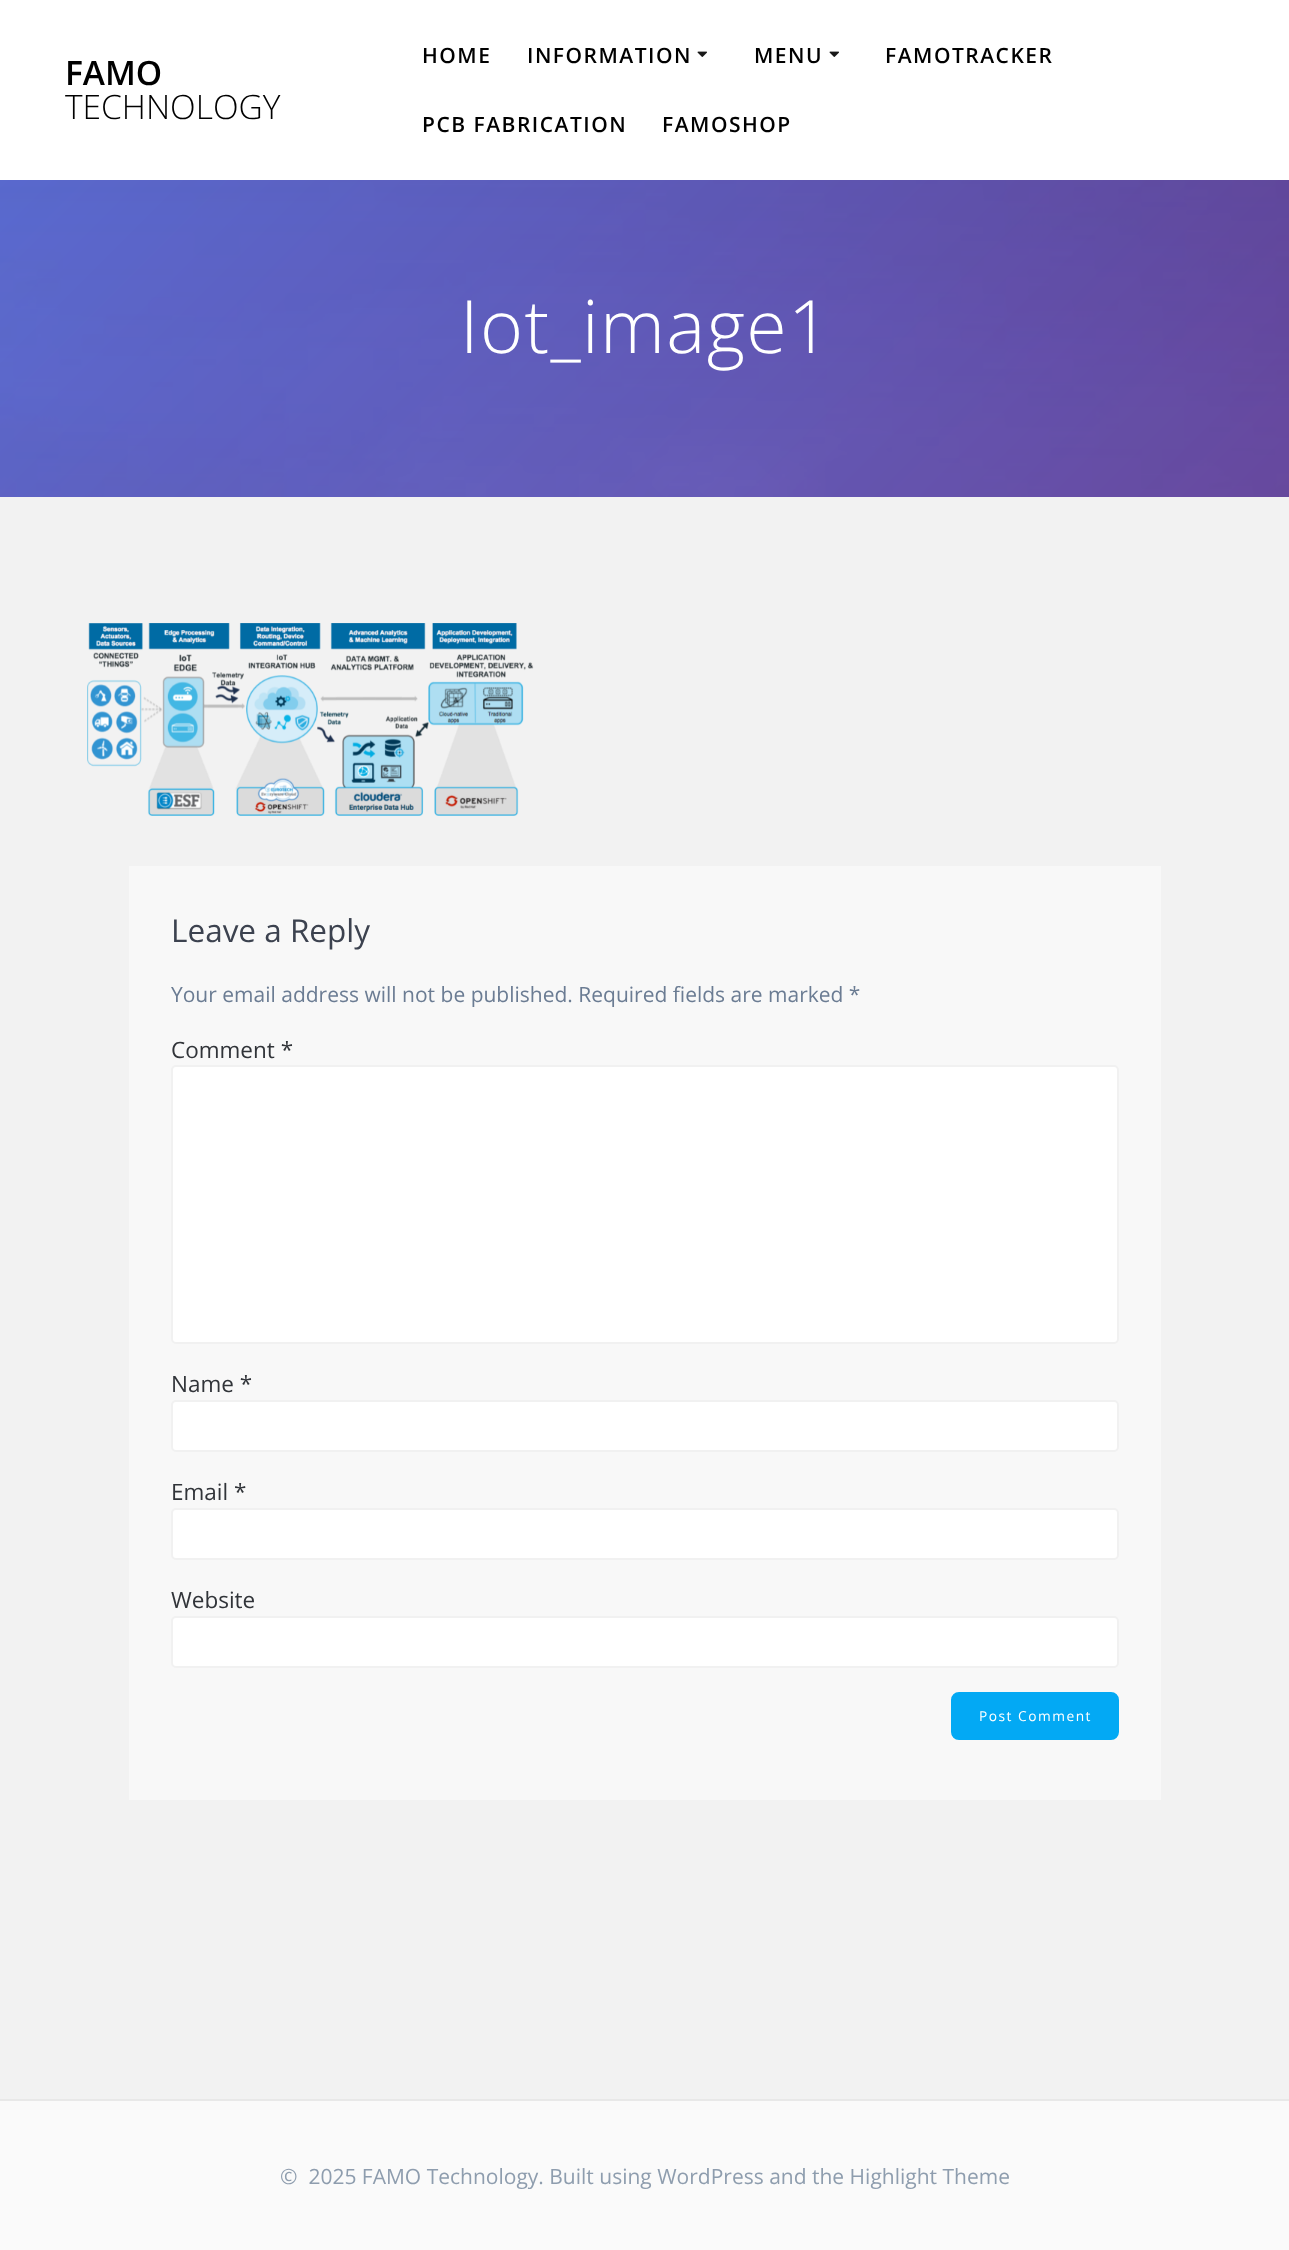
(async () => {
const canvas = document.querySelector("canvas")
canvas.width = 1289
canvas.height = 2250
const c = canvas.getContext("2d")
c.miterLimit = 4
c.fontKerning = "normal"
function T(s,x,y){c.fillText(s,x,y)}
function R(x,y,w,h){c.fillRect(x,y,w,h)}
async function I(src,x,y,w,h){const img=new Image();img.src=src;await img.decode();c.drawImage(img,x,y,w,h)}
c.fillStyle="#f2f2f2"
R(0,0,1289,2250)
c.fillStyle="#fff"
R(0,0,1289,180)
c.font="600 33.5px Open Sans"
c.fillStyle="#000"
T("FAMO",65,85)
c.font="300 33.5px Open Sans"
T("TECHNOLOGY",65,119)
c.letterSpacing="1.5px"
c.font="600 21px Open Sans"
T("HOME",422,63)
T("INFORMATION",527,63)
await I("1.png",697,51,10,6)
T("MENU",754,63)
await I("1.png",829,51,10,6)
T("FAMOTRACKER",885,63)
T("PCB FABRICATION",422,132)
T("FAMOSHOP",662,132)
await I("2.png",0,180,1289,317)
c.letterSpacing="1.4px"
c.font="300 73.5px Open Sans"
c.fillStyle="#fff"
T("Iot_image1",460,353)
await I("3.png",87,623,447,193)
c.fillStyle="#f8f8f8"
R(129,866,1032,934)
c.letterSpacing="0px"
c.font="31.5px Open Sans"
c.fillStyle="#3c424f"
T("Leave a Reply",171,942)
c.font="21px Open Sans"
c.fillStyle="#6b7c93"
T("Your email address will not be published. Required fields are marked *",171,1002)
c.font="22.5px Open Sans"
c.fillStyle="#313439"
T("Comment *",171,1058)
c.fillStyle="#fff"
c.beginPath()
c.roundRect(172,1066,946,277,4)
c.fill()
c.strokeStyle="#f1f1f1"
c.lineWidth=2
c.stroke()
c.fillStyle="#313439"
T("Name *",171,1392)
c.fillStyle="#fff"
c.beginPath()
c.roundRect(172,1401,946,50,4)
c.fill()
c.stroke()
c.fillStyle="#313439"
T("Email *",171,1500)
c.fillStyle="#fff"
c.beginPath()
c.roundRect(172,1509,946,50,4)
c.fill()
c.stroke()
c.fillStyle="#313439"
T("Website",171,1608)
c.fillStyle="#fff"
c.beginPath()
c.roundRect(172,1617,946,50,4)
c.fill()
c.stroke()
c.fillStyle="#03a9f4"
c.beginPath()
c.roundRect(952.5,1693.5,165,45,6.5)
c.fill()
c.strokeStyle="#03a9f4"
c.lineWidth=3
c.stroke()
c.letterSpacing="1.5px"
c.font="13.75px Open Sans"
c.fillStyle="#fff"
T("Post Comment",979,1721)
c.fillStyle="#fafafa"
R(0,2101,1289,149)
c.fillStyle="#e8e8e8"
R(0,2099,1289,2)
c.letterSpacing="0px"
c.font="21px Open Sans"
c.fillStyle="#8e9dae"
T("©  2025 FAMO Technology. Built using WordPress and the Highlight Theme",280,2184)
})()
